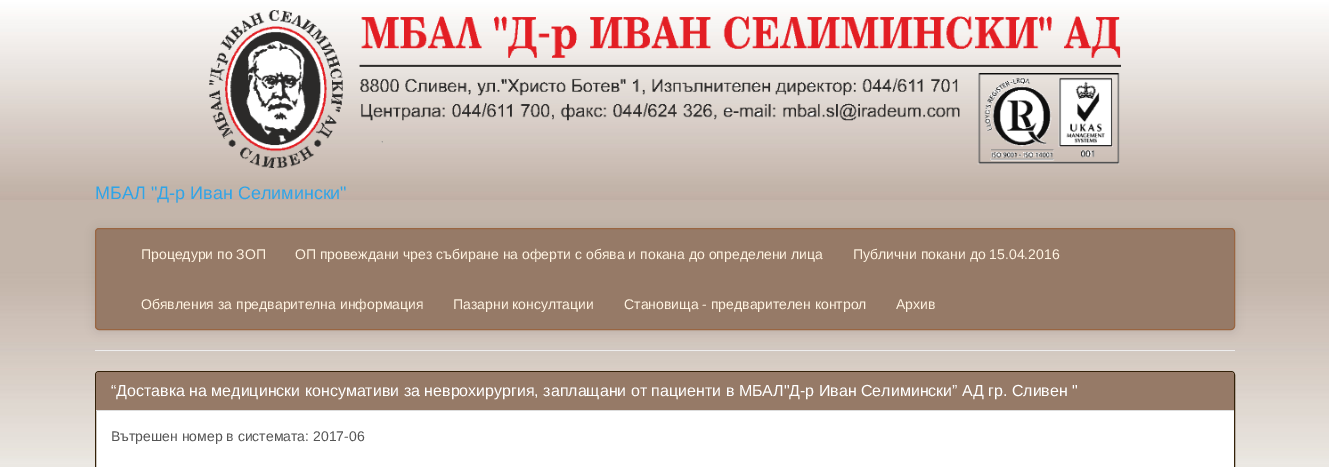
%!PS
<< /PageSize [1329 467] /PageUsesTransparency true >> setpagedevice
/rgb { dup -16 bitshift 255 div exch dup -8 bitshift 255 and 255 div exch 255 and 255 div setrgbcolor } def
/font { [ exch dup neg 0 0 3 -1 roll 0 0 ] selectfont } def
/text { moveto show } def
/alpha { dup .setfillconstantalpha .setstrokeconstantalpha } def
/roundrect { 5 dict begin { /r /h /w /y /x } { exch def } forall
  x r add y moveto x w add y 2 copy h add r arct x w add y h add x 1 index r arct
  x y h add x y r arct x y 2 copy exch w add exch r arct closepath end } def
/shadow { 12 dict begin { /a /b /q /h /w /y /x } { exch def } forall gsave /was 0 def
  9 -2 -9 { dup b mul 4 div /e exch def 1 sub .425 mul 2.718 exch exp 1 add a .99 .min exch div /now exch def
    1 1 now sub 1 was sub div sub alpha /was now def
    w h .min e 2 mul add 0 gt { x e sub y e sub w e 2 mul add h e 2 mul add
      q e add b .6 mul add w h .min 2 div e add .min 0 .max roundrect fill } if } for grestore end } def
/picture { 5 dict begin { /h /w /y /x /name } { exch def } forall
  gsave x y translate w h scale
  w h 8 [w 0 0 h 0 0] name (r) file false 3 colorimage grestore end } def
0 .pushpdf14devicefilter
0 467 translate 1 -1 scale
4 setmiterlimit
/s1 { /LiberationSans-Regular 18 font 16#2FA4E7 rgb } def
/s2 { /LiberationSans-Regular 14 font 16#FFF3E1 rgb } def
/s3 { /LiberationSans-Regular 16 font 16#FFFFFF rgb } def
/s4 { /LiberationSans-Regular 14 font 16#555555 rgb } def
16#FFFFFF rgb
0 0 1329 467 rectfill
(pic1.raw) 0 0 1329 467 picture
(pic2.raw) 209 10 912 158 picture
s1
(МБАЛ "Д-р Иван Селимински") 95 199 text
16#000000 rgb
95 229 1140 102 4 5 0.1 shadow
16#967A67 rgb
95.5 228.5 1139 101 3.5 roundrect gsave fill grestore
16#996541 rgb
stroke
s2
(Процедури по ЗОП) 141 259 text
(ОП провеждани чрез събиране на оферти с обява и покана до определени лица) 295 259 text
(Публични покани до 15.04.2016) 853 259 text
(Обявления за предварителна информация) 141 309 text
(Пазарни консултации) 453 309 text
(Становища - предварителен контрол) 624 309 text
(Архив) 896 309 text
16#EEEEEE rgb
95 350 1140 1 rectfill
16#FFFFFF rgb
95.5 371.5 1139 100 3.5 roundrect gsave fill grestore
16#332108 rgb
stroke
16#967A67 rgb
99 372 moveto 1231 372 lineto 1232.5 372 1234 373.5 1234 375 curveto 1234 410 lineto 96 410 lineto 96 375 lineto 96 373.5 97.5 372 99 372 curveto closepath fill
s3
(“Доставка на медицински консумативи за неврохирургия, заплащани от пациенти в МБАЛ"Д-р Иван Селимински” АД гр. Сливен ") 111 396 text
16#DDDDDD rgb
96 410 1138 1 rectfill
s4
(Вътрешен номер в системата: 2017-06) 111 441 text
.poppdf14devicefilter showpage
